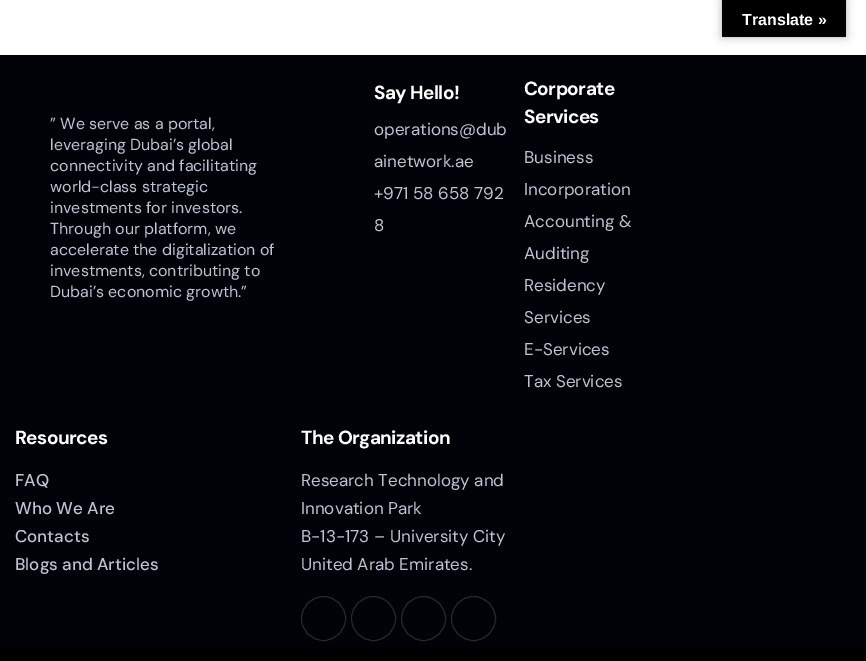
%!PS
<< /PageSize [866 661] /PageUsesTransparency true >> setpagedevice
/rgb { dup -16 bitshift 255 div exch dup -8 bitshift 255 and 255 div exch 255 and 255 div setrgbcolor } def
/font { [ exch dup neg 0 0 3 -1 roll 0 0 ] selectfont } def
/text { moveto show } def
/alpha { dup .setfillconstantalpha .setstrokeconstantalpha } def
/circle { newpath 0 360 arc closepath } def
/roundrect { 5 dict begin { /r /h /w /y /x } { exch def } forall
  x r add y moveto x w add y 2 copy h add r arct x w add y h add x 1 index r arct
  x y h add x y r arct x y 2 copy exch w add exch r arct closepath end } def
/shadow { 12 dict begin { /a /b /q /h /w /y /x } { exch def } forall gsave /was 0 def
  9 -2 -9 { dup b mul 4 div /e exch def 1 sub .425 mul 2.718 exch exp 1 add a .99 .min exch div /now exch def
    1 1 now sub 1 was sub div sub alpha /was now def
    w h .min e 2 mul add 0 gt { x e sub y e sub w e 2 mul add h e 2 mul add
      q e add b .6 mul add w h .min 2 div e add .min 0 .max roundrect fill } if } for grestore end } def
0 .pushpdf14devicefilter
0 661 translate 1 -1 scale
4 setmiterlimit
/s1 { /LiberationSans-Bold 16 font 16#FFFFFF rgb } def
/s2 { /DMSans-Regular 16 font 16#BCC4D3 rgb } def
/s3 { /DMSans-Regular 17 font 16#BCC4D3 rgb } def
/s4 { /DMSans-Medium 17 font 16#BCC4D3 rgb } def
16#FFFFFF rgb
0 0 866 661 rectfill
16#000000 rgb
722 0 124 37 0 4.5 0.3 shadow
722 0 124 37 rectfill
s1
(Translate ») 742 25 text
16#000208 rgb
0 55 866 594 rectfill
s2
(” We serve as a portal,) 50 129 text
(leveraging Dubai’s global) 50 150 text
(connectivity and facilitating) 50 171 text
(world-class strategic) 50 192 text
(investments for investors.) 50 213 text
(Through our platform, we) 50 234 text
(accelerate the digitalization of) 50 255 text
(investments, contributing to) 50 276 text
(Dubai’s economic growth.”) 50 297 text
/DMSans-Bold 19 font
16#FFFFFF rgb
374 99 moveto -0.6 0 (Say Hello!) ashow
s3
(operations@dub) 374 135 text
(ainetwork.ae) 374 167 text
(+971 58 658 792) 374 199 text
(8) 374 231 text
/DMSans-Bold 19 font
16#FFFFFF rgb
524 95 moveto -0.6 0 (Corporate) ashow
524 123 moveto -0.6 0 (Services) ashow
s3
(Business) 524 163 text
(Incorporation) 524 195 text
(Accounting &) 524 227 text
(Auditing) 524 259 text
(Residency) 524 291 text
(Services) 524 323 text
(E-Services) 524 355 text
(Tax Services) 524 387 text
/DMSans-Bold 19 font
16#FFFFFF rgb
15 444 moveto -0.6 0 (Resources) ashow
s4
(FAQ) 15 486 text
(Who We Are) 15 514 text
(Contacts) 15 542 text
(Blogs and Articles) 15 570 text
/DMSans-Bold 19 font
16#FFFFFF rgb
301 444 moveto -0.6 0 (The Organization) ashow
s3
(Research Technology and) 301 486 text
(Innovation Park) 301 514 text
(B-13-173 – University City) 301 542 text
(United Arab Emirates.) 301 570 text
16#26282D rgb
323.5 618.5 22 circle stroke
373.5 618.5 22 circle stroke
423.5 618.5 22 circle stroke
473.5 618.5 22 circle stroke
16#000000 rgb
0 649 866 12 rectfill
.poppdf14devicefilter showpage
